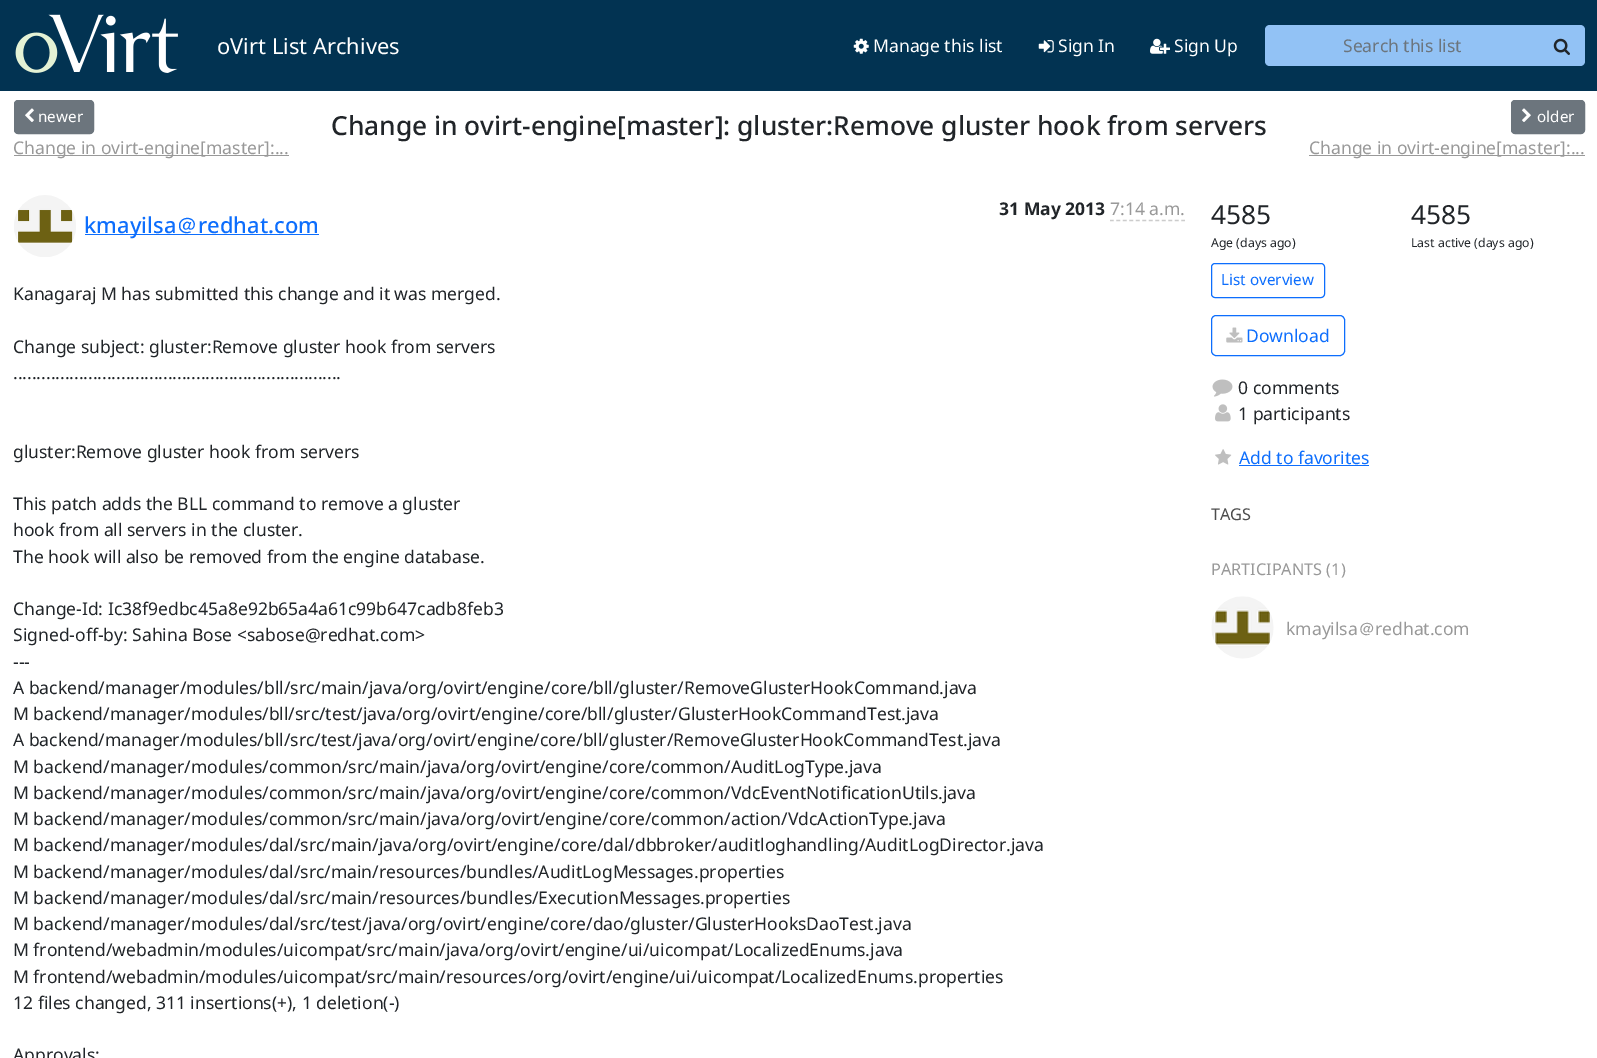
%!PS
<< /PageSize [1597 1058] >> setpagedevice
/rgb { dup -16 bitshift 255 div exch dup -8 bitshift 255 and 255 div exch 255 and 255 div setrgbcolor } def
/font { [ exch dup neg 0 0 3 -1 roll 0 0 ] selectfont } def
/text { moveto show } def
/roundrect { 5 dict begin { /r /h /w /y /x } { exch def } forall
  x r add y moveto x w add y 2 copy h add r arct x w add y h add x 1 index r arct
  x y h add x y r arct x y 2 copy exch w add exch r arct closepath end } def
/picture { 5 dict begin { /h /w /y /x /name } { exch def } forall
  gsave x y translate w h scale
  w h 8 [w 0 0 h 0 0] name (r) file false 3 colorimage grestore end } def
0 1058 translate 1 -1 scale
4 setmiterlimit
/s1 { /NotoSans-Regular 21.9 font 16#FFFFFF rgb } def
/s2 { /NotoSans-Regular 17.5 font 16#FFFFFF rgb } def
/s3 { /NotoSans-Regular 17.5 font 16#6C757D rgb } def
/s4 { /NotoSans-Regular 15.25 font 16#FFFFFF rgb } def
/s5 { /NotoSans-Regular 17.5 font 16#999999 rgb } def
/s6 { /NotoSans-Medium 26.25 font 16#212529 rgb } def
/s7 { /NotoSans-Bold 17.5 font 16#212529 rgb } def
/s8 { /NotoSans-Medium 21.9 font 16#0D6EFD rgb } def
/s9 { /WenQuanYiZenHei-Medium 21.9 font 16#0D6EFD rgb } def
/s10 { /NotoSans-Regular 17.5 font 16#212529 rgb } def
/s11 { /NotoSans-Regular 26.25 font 16#212529 rgb } def
/s12 { /NotoSans-Regular 12.25 font 16#212529 rgb } def
/s13 { /NotoSans-Regular 15.25 font 16#0D6EFD rgb } def
/s14 { /NotoSans-Regular 17.5 font 16#0D6EFD rgb } def
/s15 { /NotoSans-Regular 16.25 font 16#4D4D4D rgb } def
/s16 { /NotoSans-Regular 16.25 font 16#999999 rgb } def
/s17 { /WenQuanYiZenHei-Medium 17.5 font 16#999999 rgb } def
16#FFFFFF rgb
0 0 1597 1058 rectfill
16#023352 rgb
0 0 1597 91 rectfill
(pic1.raw) 15 14 163 59 picture
s1
(oVirt List Archives) 217 54 text
(pic2.raw) 853 38 16 16 picture
s2
(Manage this list) 873 52 text
(pic3.raw) 1038 40 16 13 picture
(Sign In) 1058 52 text
(pic4.raw) 1150 38 20 16 picture
(Sign Up) 1174 52 text
16#92C2F5 rgb
1270 25 moveto 1541 25 lineto 1541 66 lineto 1270 66 lineto 1267 66 1265 64 1265 61 curveto 1265 30 lineto 1265 27 1267 25 1270 25 curveto closepath fill
s3
(Search this list) 1343 52 text
16#92C2F5 rgb
1540 25 moveto 1580 25 lineto 1583 25 1585 27 1585 30 curveto 1585 61 lineto 1585 64 1583 66 1580 66 curveto 1540 66 lineto closepath fill
(pic5.raw) 1553 38 17 17 picture
16#6C757D rgb
14.5 100.5 79 33 3.5 roundrect gsave fill grestore
stroke
(pic6.raw) 25 108 9 14 picture
s4
(newer) 38 122 text
16#999999 rgb
14 155 275 1 rectfill
s5
(Change in ovirt-engine[master]:...) 13 154 text
s6
(Change in ovirt-engine[master]: gluster:Remove gluster hook from servers) 331 135 text
16#6C757D rgb
1511.5 100.5 73 33 3.5 roundrect gsave fill grestore
stroke
(pic7.raw) 1522 108 9 14 picture
s4
(older) 1537 122 text
16#999999 rgb
1309 155 276 1 rectfill
s5
(Change in ovirt-engine[master]:...) 1309 154 text
s7
(31 May 2013) 999 215 text
s5
(7:14 a.m.) 1110 215 text
16#CCCCCC rgb
1.2 setlinewidth
[3.75 2.73] 0 setdash
1110 220.5 moveto 1185 220.5 lineto stroke
(pic8.raw) 14 195 62 62 picture
16#0D6EFD rgb
85 234 234 1 rectfill
s8
(kmayilsa) 84 233 text
s9
(＠) 176 233 text
s8
(redhat.com) 198 233 text
s10
(Kanagaraj M has submitted this change and it was merged.) 13 300 text
(Change subject: gluster:Remove gluster hook from servers) 13 353 text
(......................................................................) 13 379 text
(gluster:Remove gluster hook from servers) 13 458 text
(This patch adds the BLL command to remove a gluster) 13 510 text
(hook from all servers in the cluster.) 13 536 text
(The hook will also be removed from the engine database.) 13 563 text
(Change-Id: Ic38f9edbc45a8e92b65a4a61c99b647cadb8feb3) 13 615 text
(Signed-off-by: Sahina Bose <sabose@redhat.com>) 13 641 text
(---) 13 668 text
(A backend/manager/modules/bll/src/main/java/org/ovirt/engine/core/bll/gluster/RemoveGlusterHookCommand.java) 13 694 text
(M backend/manager/modules/bll/src/test/java/org/ovirt/engine/core/bll/gluster/GlusterHookCommandTest.java) 13 720 text
(A backend/manager/modules/bll/src/test/java/org/ovirt/engine/core/bll/gluster/RemoveGlusterHookCommandTest.java) 13 746 text
(M backend/manager/modules/common/src/main/java/org/ovirt/engine/core/common/AuditLogType.java) 13 773 text
(M backend/manager/modules/common/src/main/java/org/ovirt/engine/core/common/VdcEventNotificationUtils.java) 13 799 text
(M backend/manager/modules/common/src/main/java/org/ovirt/engine/core/common/action/VdcActionType.java) 13 825 text
(M backend/manager/modules/dal/src/main/java/org/ovirt/engine/core/dal/dbbroker/auditloghandling/AuditLogDirector.java) 13 851 text
(M backend/manager/modules/dal/src/main/resources/bundles/AuditLogMessages.properties) 13 878 text
(M backend/manager/modules/dal/src/main/resources/bundles/ExecutionMessages.properties) 13 904 text
(M backend/manager/modules/dal/src/test/java/org/ovirt/engine/core/dao/gluster/GlusterHooksDaoTest.java) 13 930 text
(M frontend/webadmin/modules/uicompat/src/main/java/org/ovirt/engine/ui/uicompat/LocalizedEnums.java) 13 956 text
(M frontend/webadmin/modules/uicompat/src/main/resources/org/ovirt/engine/ui/uicompat/LocalizedEnums.properties) 13 983 text
(12 files changed, 311 insertions\(+\), 1 deletion\(-\)) 13 1009 text
(Approvals:) 13 1061 text
s11
(4585) 1211 224 text
s12
(Age \(days ago\)) 1211 247 text
s11
(4585) 1411 224 text
s12
(Last active \(days ago\)) 1411 247 text
16#0D6EFD rgb
1 setlinewidth
[] 0 setdash
1211.5 263.5 113 34 3.5 roundrect stroke
s13
(List overview) 1221 285 text
1211.5 315.5 133 40 4.5 roundrect stroke
(pic9.raw) 1226 327 17 16 picture
s14
(Download) 1246 342 text
(pic10.raw) 1212 379 21 18 picture
s10
(0 comments) 1238 394 text
(pic11.raw) 1215 404 16 18 picture
(1 participants) 1238 420 text
(pic12.raw) 1215 449 17 16 picture
s14
(Add to favorites) 1239 464 text
1239 465 130 1 rectfill
s15
(TAGS) 1211 520 text
s16
(PARTICIPANTS \(1\)) 1211 575 text
(pic13.raw) 1211 596 63 63 picture
s5
(kmayilsa) 1286 635 text
s17
(＠) 1358 635 text
s5
(redhat.com) 1375 635 text
showpage
